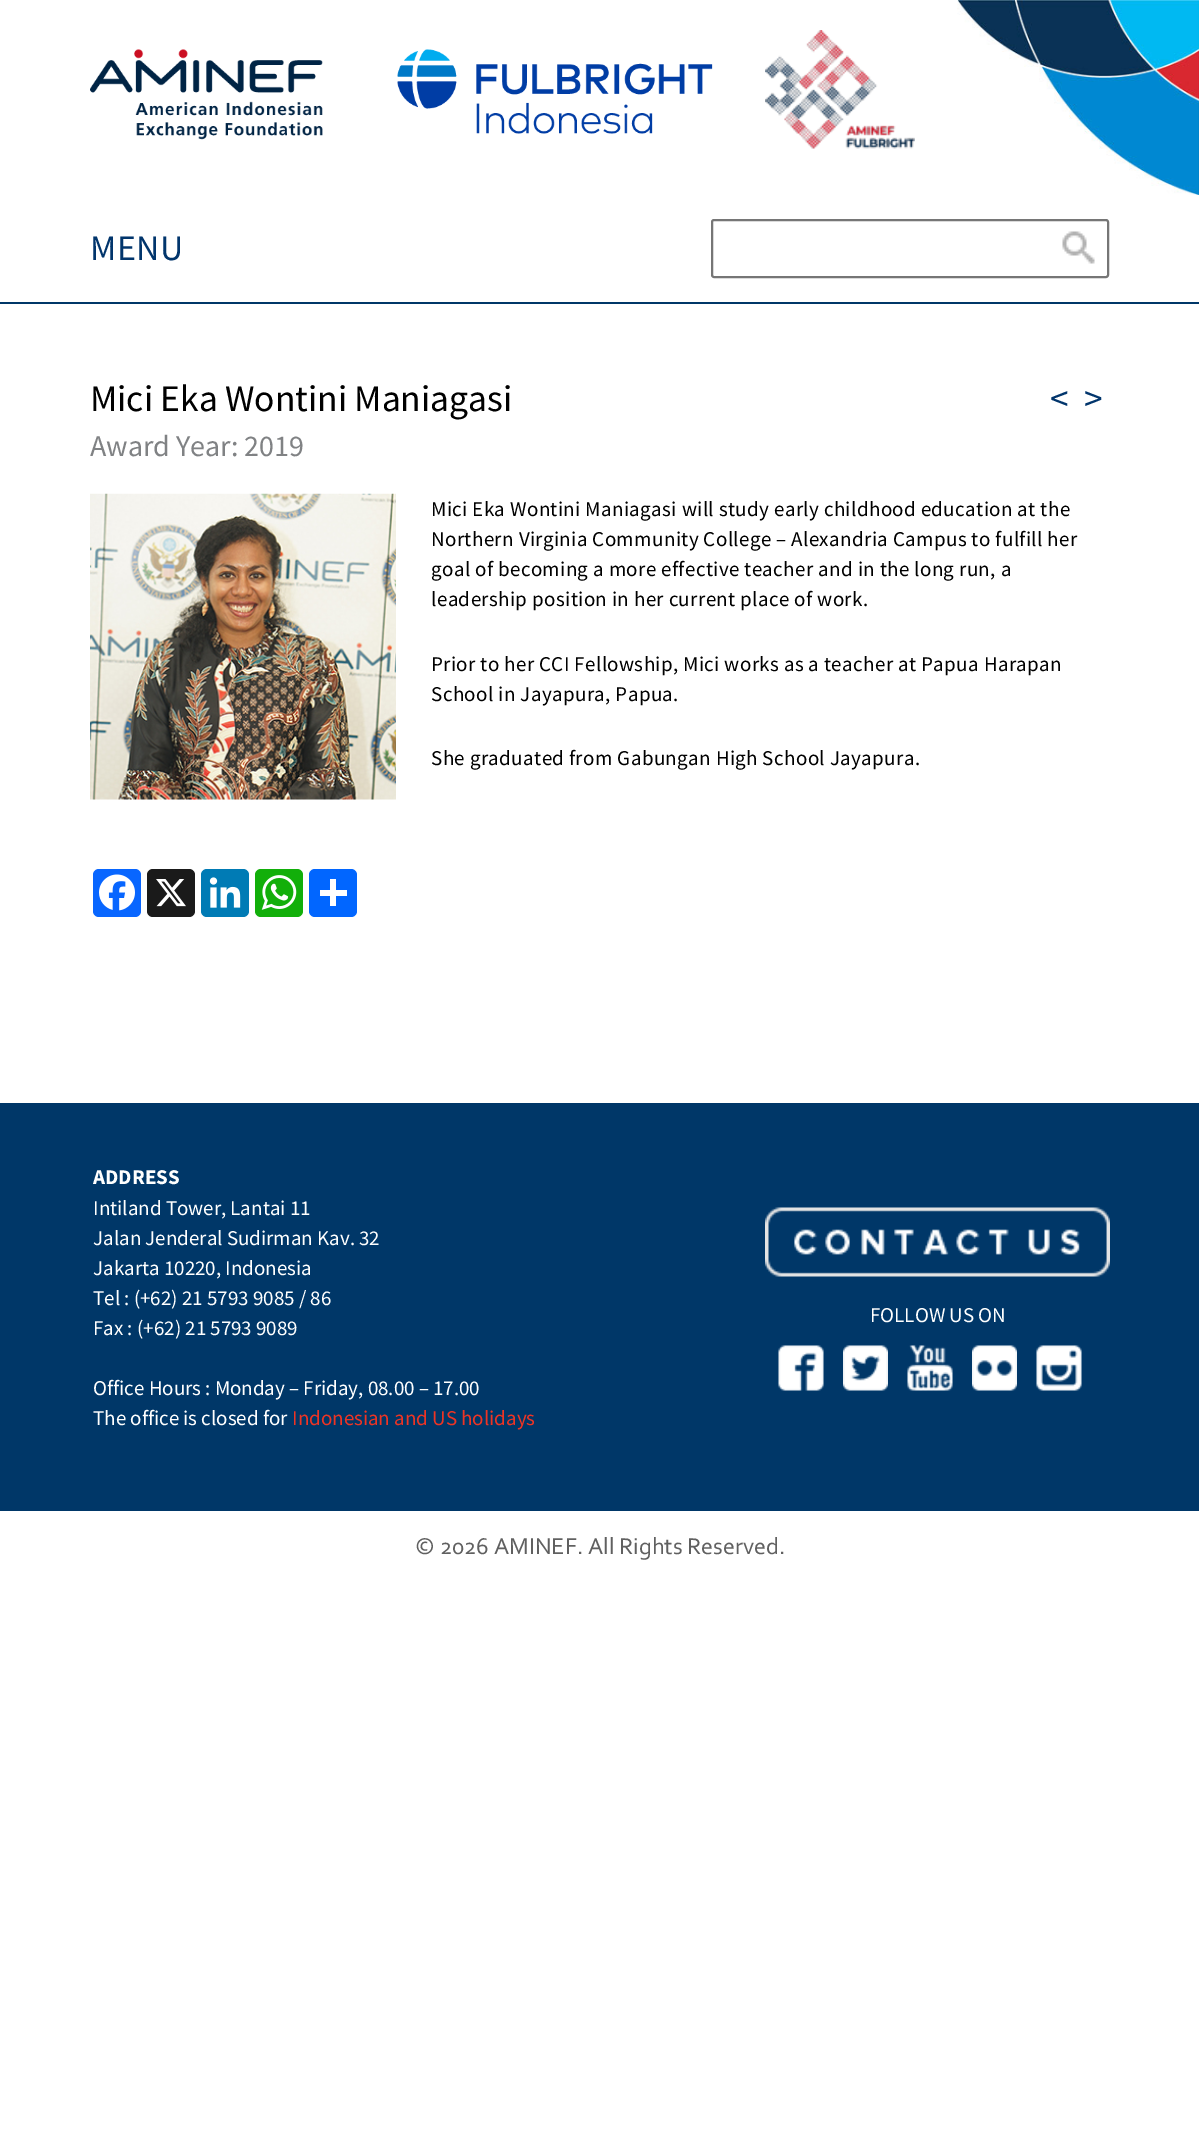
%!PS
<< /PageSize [1199 2134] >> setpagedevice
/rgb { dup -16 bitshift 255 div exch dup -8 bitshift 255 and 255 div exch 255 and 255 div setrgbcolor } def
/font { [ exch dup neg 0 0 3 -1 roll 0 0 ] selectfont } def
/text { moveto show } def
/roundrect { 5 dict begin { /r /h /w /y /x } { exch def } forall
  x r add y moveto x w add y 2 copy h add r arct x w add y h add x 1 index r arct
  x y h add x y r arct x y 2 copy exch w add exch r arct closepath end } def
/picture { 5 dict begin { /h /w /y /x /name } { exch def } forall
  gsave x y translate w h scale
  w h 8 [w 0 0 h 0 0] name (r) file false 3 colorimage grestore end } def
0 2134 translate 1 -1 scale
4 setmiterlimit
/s1 { /SourceSansPro-Regular 37.5 font 16#000000 rgb } def
/s2 { /SourceSansPro-Regular 37.5 font 16#01356C rgb } def
/s3 { /SourceSansPro-Regular 30 font 16#808284 rgb } def
/s4 { /SourceSansPro-Bold 21 font 16#FFFFFF rgb } def
/s5 { /SourceSansPro-Regular 21 font 16#FFFFFF rgb } def
/s6 { /SourceSansPro-Regular 21 font 16#EE3424 rgb } def
/s7 { /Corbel-Regular 24 font 16#606060 rgb } def
16#FFFFFF rgb
0 0 1199 2134 rectfill
(pic1.raw) 957 0 242 195 picture
(pic2.raw) 90 49 233 91 picture
(pic3.raw) 397 49 316 85 picture
(pic4.raw) 765 30 150 119 picture
16#003768 rgb
0 302 1199 2 rectfill
/SourceSansPro-Regular 36 font
16#01356C rgb
90 260 moveto 0.38 0 (MENU) ashow
16#767676 rgb
2 setlinewidth
712 220 396 57 2 roundrect stroke
(pic5.raw) 1062 231 33 33 picture
s1
(Mici Eka Wontini Maniagasi) 90 411 text
s2
(<) 1050 411 text
(>) 1084 411 text
s3
(Award Year: 2019) 90 456 text
(pic6.raw) 90 493 306 307 picture
/SourceSansPro-Regular 21 font
16#000000 rgb
431 516 moveto 0.38 0 (Mici Eka Wontini Maniagasi will study early childhood education at the) ashow
431 546 moveto 0.38 0 (Northern Virginia Community College – Alexandria Campus to fulfill her) ashow
431 576 moveto 0.38 0 (goal of becoming a more effective teacher and in the long run, a) ashow
431 606 moveto 0.38 0 (leadership position in her current place of work.) ashow
431 671 moveto 0.38 0 (Prior to her CCI Fellowship, Mici works as a teacher at Papua Harapan) ashow
431 701 moveto 0.38 0 (School in Jayapura, Papua.) ashow
431 765 moveto 0.38 0 (She graduated from Gabungan High School Jayapura.) ashow
16#0866FF rgb
93 869 48 48 6 roundrect fill
(pic7.raw) 99 874 36 37 picture
16#1A1A1A rgb
147 869 48 48 6 roundrect fill
(pic8.raw) 156 879 30 28 picture
16#007BB5 rgb
201 869 48 48 6 roundrect fill
(pic9.raw) 209 877 32 31 picture
16#12AF0A rgb
255 869 48 48 6 roundrect fill
(pic10.raw) 261 875 36 35 picture
16#0166FF rgb
309 869 48 48 6 roundrect fill
16#FFFFFF rgb
330 879 6 27 rectfill
320 890 27 6 rectfill
16#003768 rgb
0 1103 1199 408 rectfill
s4
(ADDRESS) 93 1184 text
s5
(Intiland Tower, Lantai 11) 93 1215 text
(Jalan Jenderal Sudirman Kav. 32) 93 1245 text
(Jakarta 10220, Indonesia) 93 1275 text
(Tel : \(+62\) 21 5793 9085 / 86) 93 1305 text
(Fax : \(+62\) 21 5793 9089) 93 1335 text
(Office Hours : Monday – Friday, 08.00 – 17.00) 93 1395 text
(The office is closed for) 93 1425 text
s6
(Indonesian and US holidays) 292 1425 text
(pic11.raw) 765 1207 345 70 picture
s5
(FOLLOW US ON) 870 1322 text
(pic12.raw) 778 1345 46 46 picture
(pic13.raw) 843 1345 45 46 picture
(pic14.raw) 907 1345 46 46 picture
(pic15.raw) 972 1345 45 46 picture
(pic16.raw) 1036 1345 46 46 picture
s7
(© 2026 AMINEF. All Rights Reserved.) 415 1554 text
showpage
